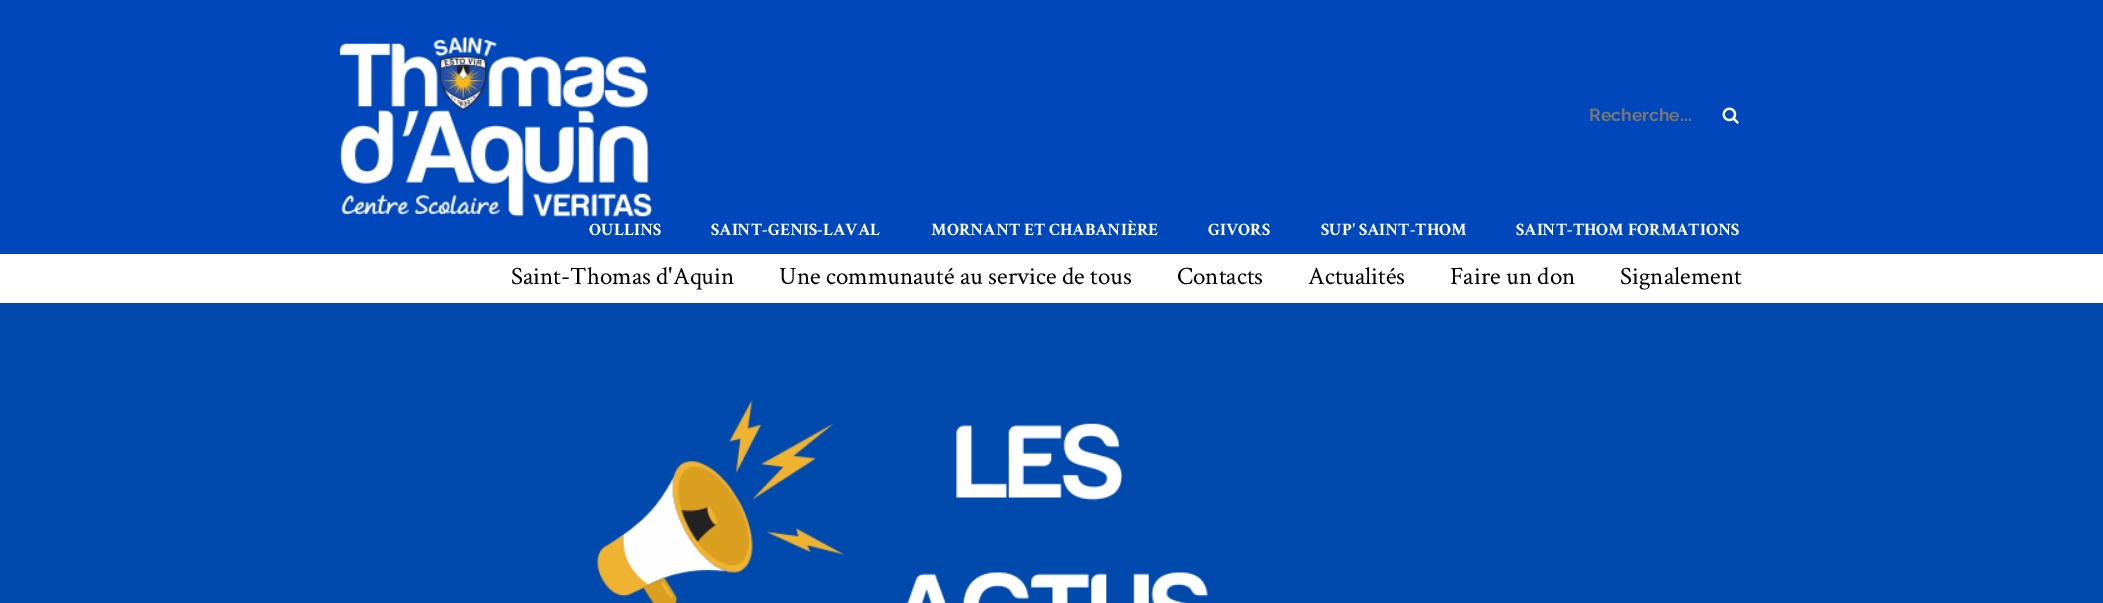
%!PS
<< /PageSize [2103 603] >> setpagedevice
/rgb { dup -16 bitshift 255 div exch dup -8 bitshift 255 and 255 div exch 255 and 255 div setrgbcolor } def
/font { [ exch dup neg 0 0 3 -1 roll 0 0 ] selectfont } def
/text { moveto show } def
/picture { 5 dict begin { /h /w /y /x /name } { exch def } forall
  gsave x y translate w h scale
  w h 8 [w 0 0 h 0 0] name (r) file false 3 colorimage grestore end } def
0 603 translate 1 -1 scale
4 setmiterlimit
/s1 { /Raleway-Bold 17.5 font 16#757575 rgb } def
/s2 { /CrimsonText-Bold 17.5 font 16#FFFFFF rgb } def
/s3 { /CrimsonText-Regular 25 font 16#000000 rgb } def
16#FFFFFF rgb
0 0 2103 603 rectfill
16#0047BB rgb
0 0 2103 254 rectfill
(pic1.raw) 339 37 313 180 picture
s1
(Recherche...) 1589 121 text
(pic2.raw) 1722 107 17 17 picture
16#0047BB rgb
0 303 2103 1 rectfill
s2
(OULLINS) 589 235 text
(SAINT-GENIS-LAVAL) 711 235 text
(MORNANT ET CHABANIÈRE) 931 235 text
(GIVORS) 1208 235 text
(SUP' SAINT-THOM) 1321 235 text
(SAINT-THOM FORMATIONS) 1516 235 text
s3
(Saint-Thomas d'Aquin) 511 284 text
(Une communauté au service de tous) 779 284 text
(Contacts) 1177 284 text
(Actualités) 1308 284 text
(Faire un don) 1450 284 text
(Signalement) 1620 284 text
(pic3.raw) 0 304 2103 299 picture
showpage
